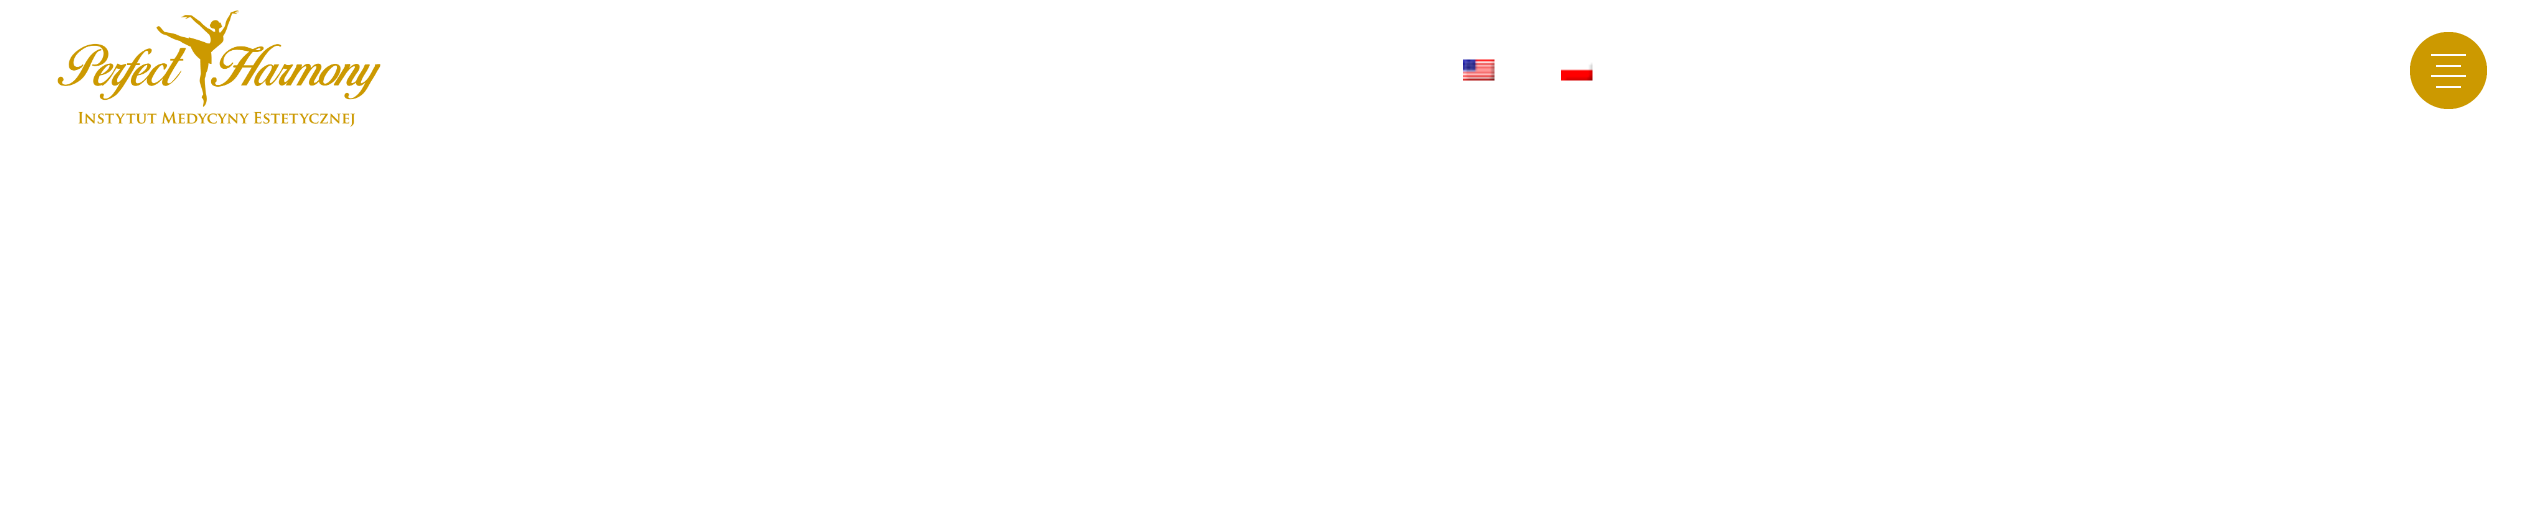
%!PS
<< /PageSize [2538 515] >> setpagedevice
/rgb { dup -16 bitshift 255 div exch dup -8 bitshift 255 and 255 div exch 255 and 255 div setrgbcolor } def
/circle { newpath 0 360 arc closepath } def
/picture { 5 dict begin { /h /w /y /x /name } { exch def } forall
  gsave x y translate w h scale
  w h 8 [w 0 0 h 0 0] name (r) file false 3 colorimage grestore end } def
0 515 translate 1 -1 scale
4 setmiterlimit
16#FFFFFF rgb
0 0 2538 515 rectfill
(pic1.raw) 57 10 324 117 picture
(pic2.raw) 1463 59 32 22 picture
(pic3.raw) 1561 62 32 19 picture
16#CC9900 rgb
2448.5 70.5 38.5 circle fill
16#FFFFFF rgb
2431 54 35 2 rectfill
2436 65 25 2 rectfill
2431 75 35 2 rectfill
2436 86 25 2 rectfill
showpage
